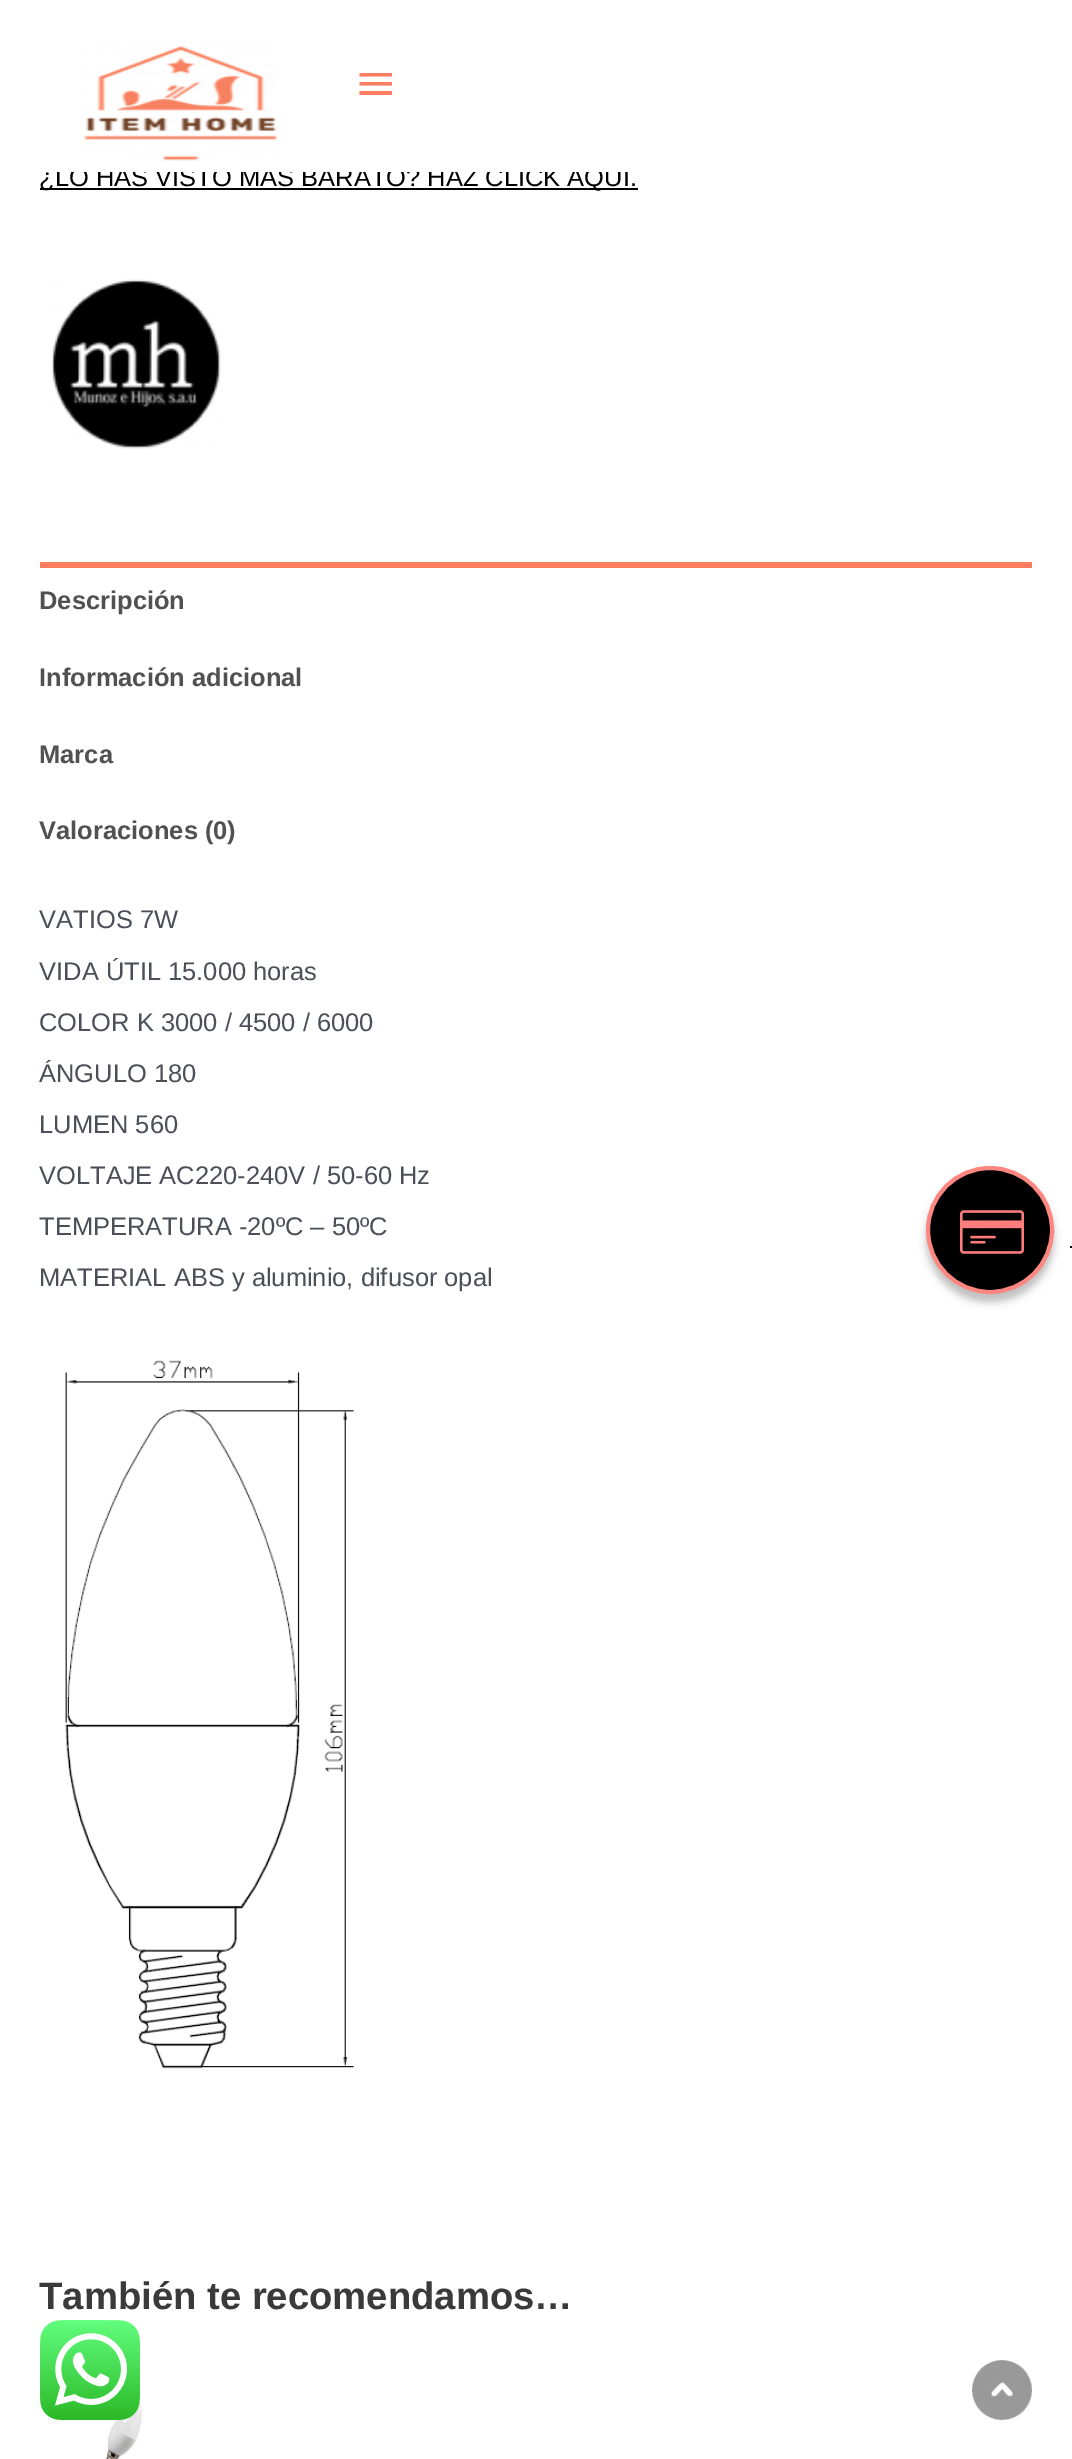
%!PS
<< /PageSize [1072 2459] /PageUsesTransparency true >> setpagedevice
/rgb { dup -16 bitshift 255 div exch dup -8 bitshift 255 and 255 div exch 255 and 255 div setrgbcolor } def
/font { [ exch dup neg 0 0 3 -1 roll 0 0 ] selectfont } def
/text { moveto show } def
/alpha { dup .setfillconstantalpha .setstrokeconstantalpha } def
/circle { newpath 0 360 arc closepath } def
/roundrect { 5 dict begin { /r /h /w /y /x } { exch def } forall
  x r add y moveto x w add y 2 copy h add r arct x w add y h add x 1 index r arct
  x y h add x y r arct x y 2 copy exch w add exch r arct closepath end } def
/shadow { 12 dict begin { /a /b /q /h /w /y /x } { exch def } forall gsave /was 0 def
  9 -2 -9 { dup b mul 4 div /e exch def 1 sub .425 mul 2.718 exch exp 1 add a .99 .min exch div /now exch def
    1 1 now sub 1 was sub div sub alpha /was now def
    w h .min e 2 mul add 0 gt { x e sub y e sub w e 2 mul add h e 2 mul add
      q e add b .6 mul add w h .min 2 div e add .min 0 .max roundrect fill } if } for grestore end } def
/picture { 5 dict begin { /h /w /y /x /name } { exch def } forall
  gsave x y translate w h scale
  w h 8 [w 0 0 h 0 0] name (r) file false 3 colorimage grestore end } def
0 .pushpdf14devicefilter
0 2459 translate 1 -1 scale
4 setmiterlimit
/s1 { /LiberationSans-Regular 25.5 font 16#000000 rgb } def
/s2 { /LiberationSans-Bold 25.5 font 16#515151 rgb } def
/s3 { /LiberationSans-Regular 25.5 font 16#4B4F58 rgb } def
/s4 { /LiberationSans-Bold 38.25 font 16#3A3A3A rgb } def
16#FFFFFF rgb
0 0 1072 2459 rectfill
16#000000 rgb
40 188 598 2 rectfill
s1
(¿LO HAS VISTO MÁS BARATO? HAZ CLICK AQUÍ.) 39 186 text
16#FFFFFF rgb
57 163 574 9 rectfill
(pic1.raw) 83 46 196 115 picture
16#FC7D60 rgb
359.5 73 moveto 392 73 lineto 392 76.5 lineto 359.5 76.5 lineto closepath 359.5 85.5 moveto 359.5 82 lineto 392 82 lineto 392 85.5 lineto closepath 359.5 95 moveto 359.5 91 lineto 392 91 lineto 392 95 lineto closepath fill
(pic2.raw) 51 279 170 170 picture
40 562 992 6 rectfill
s2
(Descripción) 39 609 text
(Información adicional) 39 686 text
(Marca) 39 763 text
(Valoraciones \(0\)) 39 839 text
s3
(VATIOS 7W) 39 928 text
(VIDA ÚTIL 15.000 horas) 39 980 text
(COLOR K 3000 / 4500 / 6000) 39 1031 text
(ÁNGULO 180) 39 1082 text
(LUMEN 560) 39 1133 text
(VOLTAJE AC220-240V / 50-60 Hz) 39 1184 text
(TEMPERATURA -20ºC – 50ºC) 39 1235 text
(MATERIAL ABS y aluminio, difusor opal) 39 1286 text
(pic3.raw) 65 1360 289 709 picture
s4
(También te recomendamos…) 39 2309 text
(pic4.raw) 105 2404 37 55 picture
16#000000 rgb
926 1174 128 128 64 4 0.25 shadow
990 1230 62 circle gsave fill grestore
16#FE8680 rgb
4 setlinewidth
stroke
(pic5.raw) 960 1210 64 44 picture
16#000000 rgb
1070 1246 2 2 rectfill
(pic6.raw) 40 2320 100 100 picture
(pic7.raw) 972 2360 60 60 picture
.poppdf14devicefilter showpage
